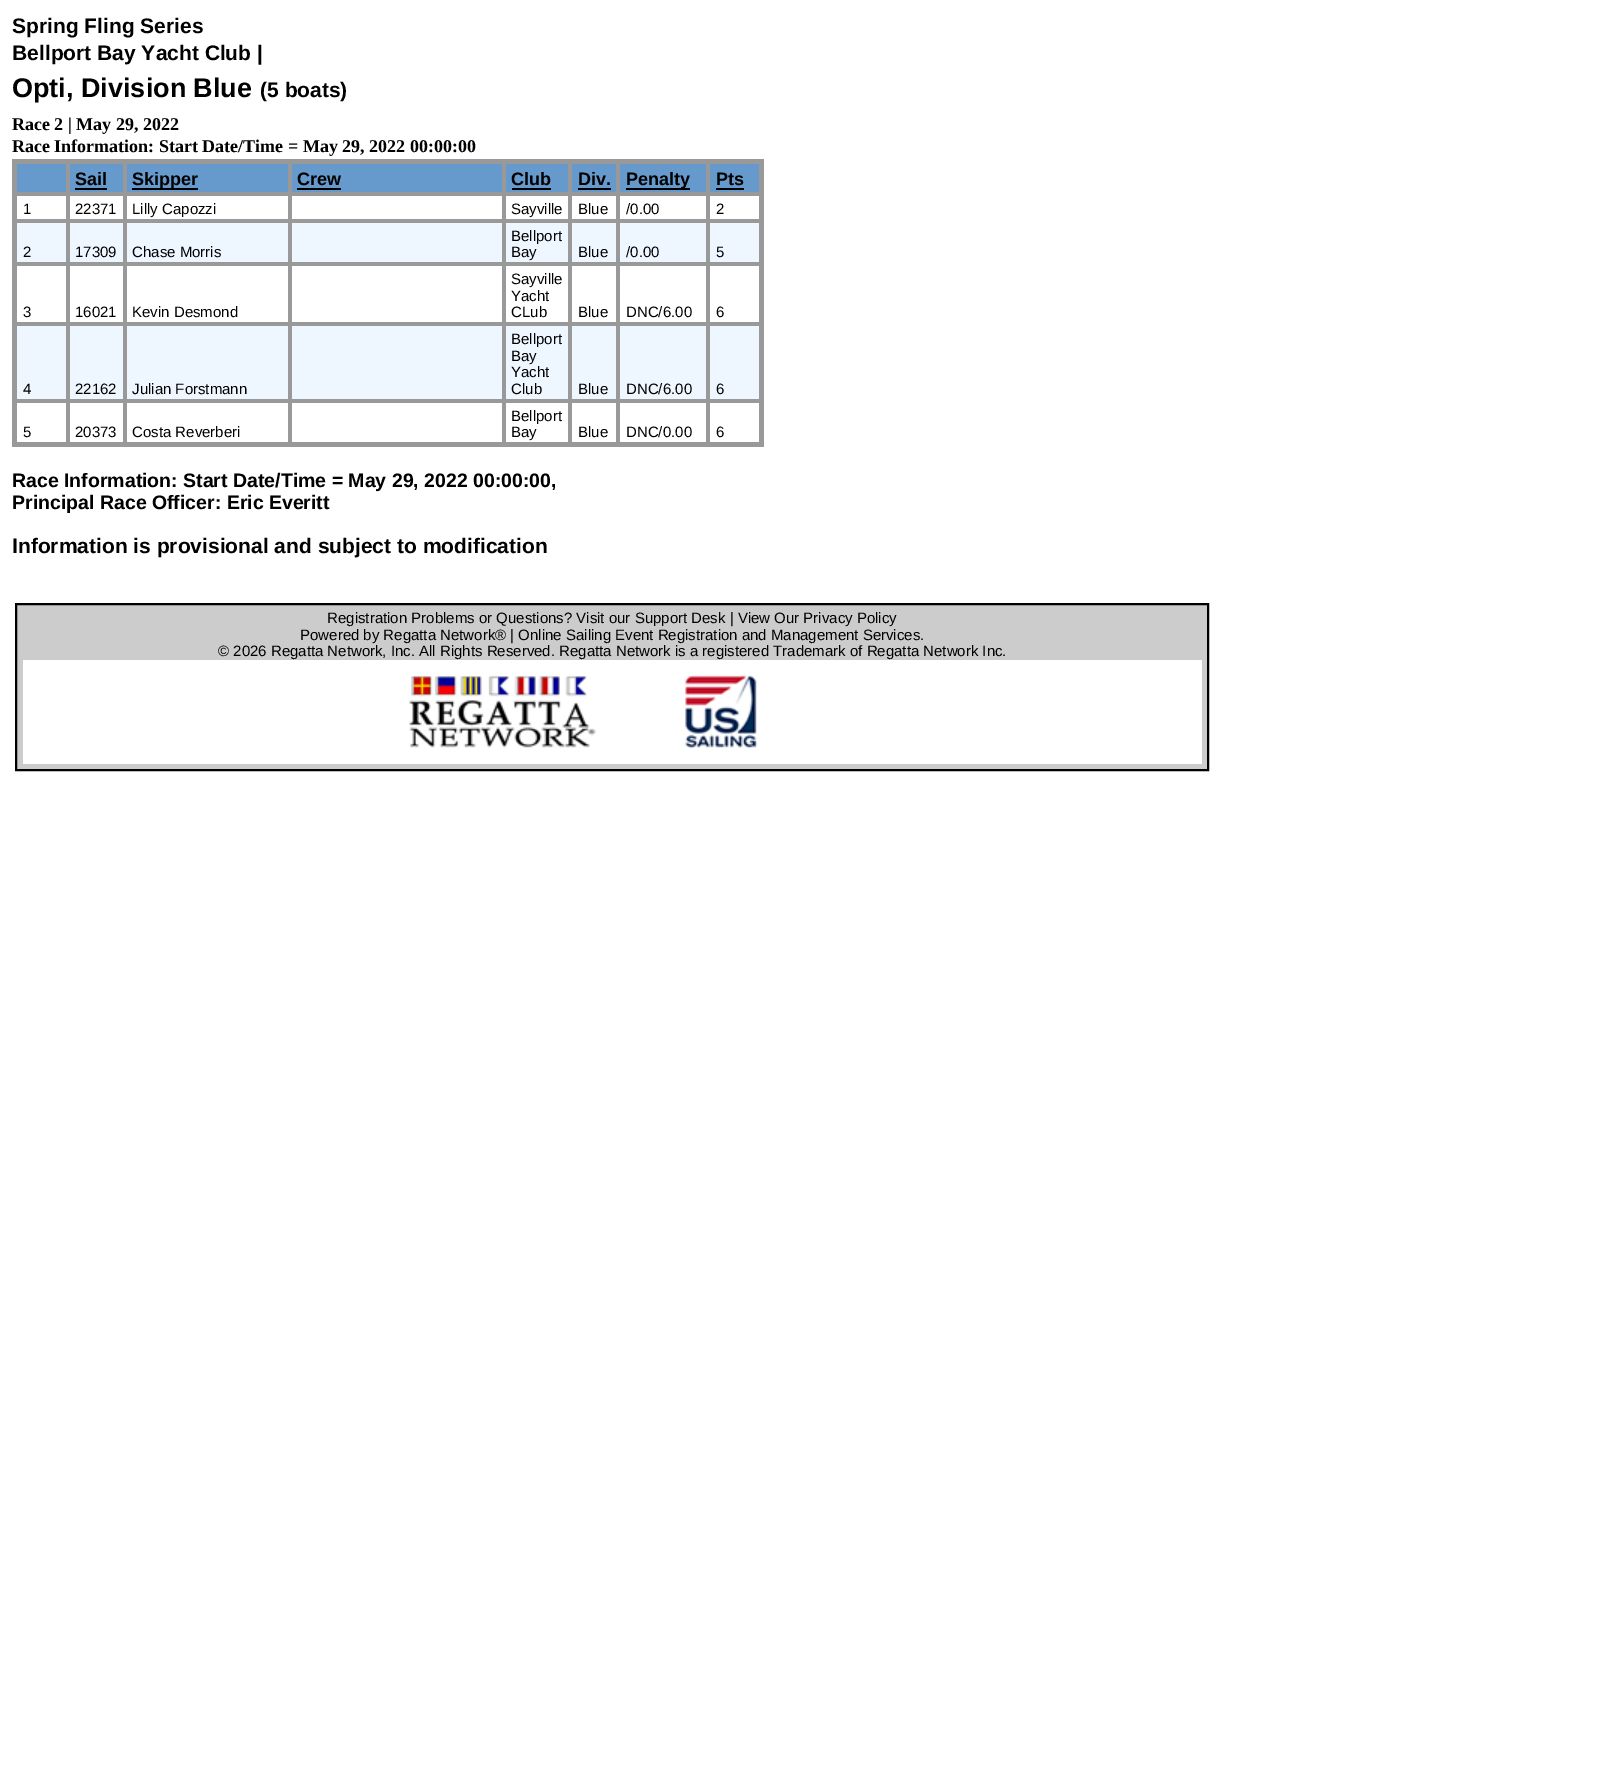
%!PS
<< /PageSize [1620 1773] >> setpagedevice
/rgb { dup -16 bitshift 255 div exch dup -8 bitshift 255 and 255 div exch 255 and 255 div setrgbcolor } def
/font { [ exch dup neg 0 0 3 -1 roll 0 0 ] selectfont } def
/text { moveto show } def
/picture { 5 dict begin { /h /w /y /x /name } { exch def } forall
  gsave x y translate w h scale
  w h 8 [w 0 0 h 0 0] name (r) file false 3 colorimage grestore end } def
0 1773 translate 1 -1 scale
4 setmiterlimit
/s1 { /LiberationSans-Bold 21 font 16#000000 rgb } def
/s2 { /LiberationSans-Bold 27 font 16#000000 rgb } def
/s3 { /LiberationSerif-Bold 18 font 16#000000 rgb } def
/s4 { /LiberationSans-Bold 18 font 16#000000 rgb } def
/s5 { /LiberationSans-Regular 15 font 16#000000 rgb } def
/s6 { /LiberationSans-Bold 19.5 font 16#000000 rgb } def
16#FFFFFF rgb
0 0 1620 1773 rectfill
s1
(Spring Fling Series) 12 33 text
(Bellport Bay Yacht Club |) 12 60 text
s2
(Opti, Division Blue) 12 97 text
s1
(\(5 boats\)) 260 97 text
s3
(Race 2 | May 29, 2022) 12 130 text
(Race Information: Start Date/Time = May 29, 2022 00:00:00) 12 152 text
16#999999 rgb
12 159 752 288 rectfill
16#6699CC rgb
17 164 49 28 rectfill
70 164 53 28 rectfill
s4
(Sail) 75 185 text
75 188 32 2 rectfill
16#6699CC rgb
127 164 161 28 rectfill
16#000000 rgb
132 188 66 2 rectfill
(Skipper) 132 185 text
16#6699CC rgb
292 164 210 28 rectfill
s4
(Crew) 297 185 text
297 188 44 2 rectfill
16#6699CC rgb
506 164 62 28 rectfill
s4
(Club) 511 185 text
512 188 39 2 rectfill
16#6699CC rgb
572 164 44 28 rectfill
s4
(Div.) 578 185 text
578 188 33 2 rectfill
16#6699CC rgb
620 164 86 28 rectfill
16#000000 rgb
626 188 64 2 rectfill
(Penalty) 626 185 text
16#6699CC rgb
710 164 49 28 rectfill
s4
(Pts) 716 185 text
716 188 28 2 rectfill
16#FFFFFF rgb
17 196 49 23 rectfill
s5
(1) 23 214 text
16#FFFFFF rgb
70 196 53 23 rectfill
s5
(22371) 75 214 text
16#FFFFFF rgb
127 196 161 23 rectfill
s5
(Lilly Capozzi) 132 214 text
16#FFFFFF rgb
292 196 210 23 rectfill
506 196 62 23 rectfill
s5
(Sayville) 511 214 text
16#FFFFFF rgb
572 196 44 23 rectfill
s5
(Blue) 578 214 text
16#FFFFFF rgb
620 196 86 23 rectfill
s5
(/0.00) 626 214 text
16#FFFFFF rgb
710 196 49 23 rectfill
s5
(2) 716 214 text
16#EEF6FF rgb
17 223 49 39 rectfill
s5
(2) 23 257 text
16#EEF6FF rgb
70 223 53 39 rectfill
s5
(17309) 75 257 text
16#EEF6FF rgb
127 223 161 39 rectfill
s5
(Chase Morris) 132 257 text
16#EEF6FF rgb
292 223 210 39 rectfill
506 223 62 39 rectfill
s5
(Bellport) 511 241 text
(Bay) 511 257 text
16#EEF6FF rgb
572 223 44 39 rectfill
s5
(Blue) 578 257 text
16#EEF6FF rgb
620 223 86 39 rectfill
s5
(/0.00) 626 257 text
16#EEF6FF rgb
710 223 49 39 rectfill
s5
(5) 716 257 text
16#FFFFFF rgb
17 266 49 56 rectfill
s5
(3) 23 317 text
16#FFFFFF rgb
70 266 53 56 rectfill
s5
(16021) 75 317 text
16#FFFFFF rgb
127 266 161 56 rectfill
s5
(Kevin Desmond) 132 317 text
16#FFFFFF rgb
292 266 210 56 rectfill
506 266 62 56 rectfill
s5
(Sayville) 511 284 text
(Yacht) 511 301 text
(CLub) 511 317 text
16#FFFFFF rgb
572 266 44 56 rectfill
s5
(Blue) 578 317 text
16#FFFFFF rgb
620 266 86 56 rectfill
s5
(DNC/6.00) 626 317 text
16#FFFFFF rgb
710 266 49 56 rectfill
s5
(6) 716 317 text
16#EEF6FF rgb
17 326 49 73 rectfill
s5
(4) 23 394 text
16#EEF6FF rgb
70 326 53 73 rectfill
s5
(22162) 75 394 text
16#EEF6FF rgb
127 326 161 73 rectfill
s5
(Julian Forstmann) 132 394 text
16#EEF6FF rgb
292 326 210 73 rectfill
506 326 62 73 rectfill
s5
(Bellport) 511 344 text
(Bay) 511 361 text
(Yacht) 511 377 text
(Club) 511 394 text
16#EEF6FF rgb
572 326 44 73 rectfill
s5
(Blue) 578 394 text
16#EEF6FF rgb
620 326 86 73 rectfill
s5
(DNC/6.00) 626 394 text
16#EEF6FF rgb
710 326 49 73 rectfill
s5
(6) 716 394 text
16#FFFFFF rgb
17 403 49 39 rectfill
s5
(5) 23 437 text
16#FFFFFF rgb
70 403 53 39 rectfill
s5
(20373) 75 437 text
16#FFFFFF rgb
127 403 161 39 rectfill
s5
(Costa Reverberi) 132 437 text
16#FFFFFF rgb
292 403 210 39 rectfill
506 403 62 39 rectfill
s5
(Bellport) 511 421 text
(Bay) 511 437 text
16#FFFFFF rgb
572 403 44 39 rectfill
s5
(Blue) 578 437 text
16#FFFFFF rgb
620 403 86 39 rectfill
s5
(DNC/0.00) 626 437 text
16#FFFFFF rgb
710 403 49 39 rectfill
s5
(6) 716 437 text
s6
(Race Information: Start Date/Time = May 29, 2022 00:00:00,) 12 487 text
(Principal Race Officer: Eric Everitt) 12 509 text
s1
(Information is provisional and subject to modification) 12 553 text
16#CCCCCC rgb
16 604 moveto 1208 604 lineto 1208 770 lineto 16 770 lineto closepath gsave fill grestore
16#000000 rgb
2 setlinewidth
stroke
s5
(Registration Problems or Questions? Visit our Support Desk | View Our Privacy Policy) 327 623 text
(Powered by Regatta Network® | Online Sailing Event Registration and Management Services.) 300 640 text
(© 2026 Regatta Network, Inc. All Rights Reserved. Regatta Network is a registered Trademark of Regatta Network Inc.) 218 656 text
16#FFFFFF rgb
23 660 1179 104 rectfill
(pic1.raw) 409 672 187 76 picture
(pic2.raw) 685 674 72 75 picture
showpage
